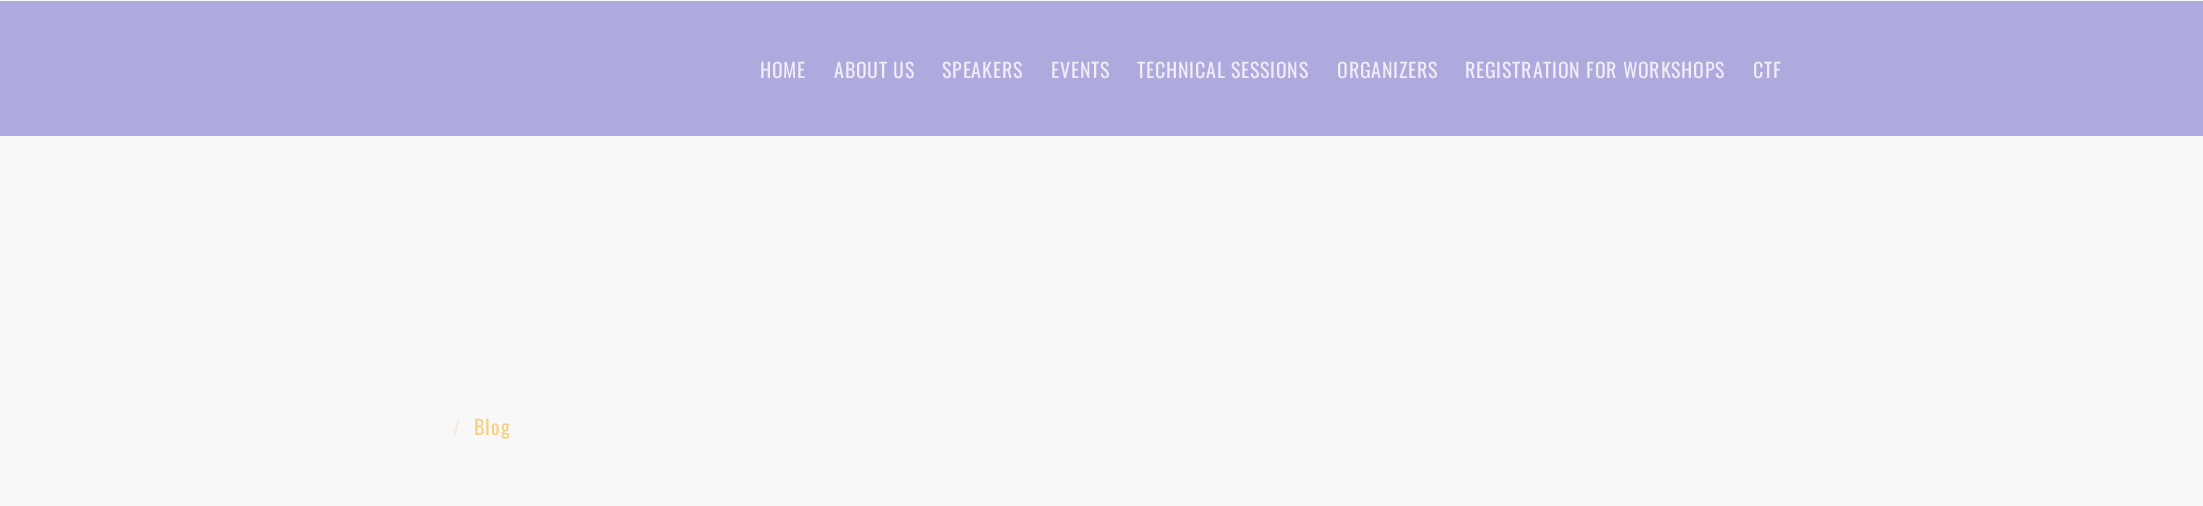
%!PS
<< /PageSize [2203 506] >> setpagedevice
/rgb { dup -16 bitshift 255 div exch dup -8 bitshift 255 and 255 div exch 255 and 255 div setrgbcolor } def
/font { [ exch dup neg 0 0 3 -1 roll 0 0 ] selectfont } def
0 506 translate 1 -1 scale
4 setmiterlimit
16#F8F8F8 rgb
0 0 2203 506 rectfill
16#AFAADE rgb
0 1 2203 135 rectfill
/Oswald-Regular 20 font
16#EFEEF8 rgb
760 78 moveto 0.75 0 (HOME) ashow
834 78 moveto 0.75 0 (ABOUT US) ashow
942 78 moveto 0.75 0 (SPEAKERS) ashow
1051 78 moveto 0.75 0 (EVENTS) ashow
1137 78 moveto 0.75 0 (TECHNICAL SESSIONS) ashow
1337 78 moveto 0.75 0 (ORGANIZERS) ashow
1465 78 moveto 0.75 0 (REGISTRATION FOR WORKSHOPS) ashow
1753 78 moveto 0.75 0 (CTF) ashow
16#F7ECD3 rgb
453 435 moveto 1 0 (/) ashow
16#F7D07E rgb
474 435 moveto 1 0 (Blog) ashow
showpage
